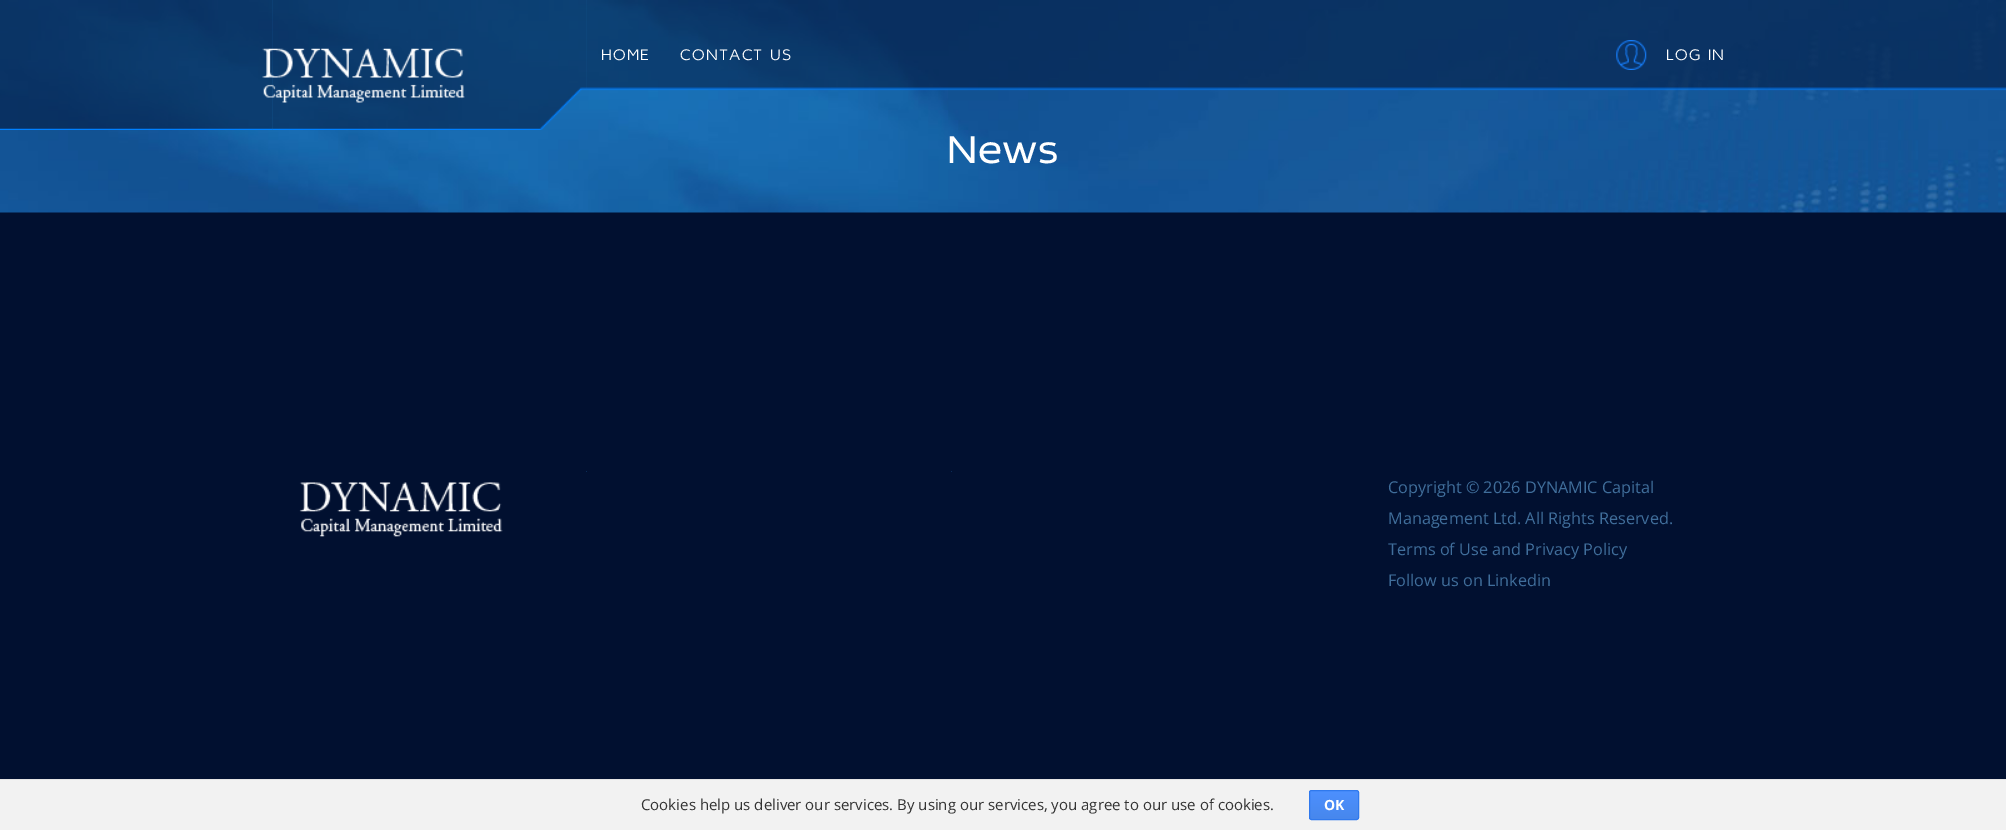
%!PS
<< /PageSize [2006 830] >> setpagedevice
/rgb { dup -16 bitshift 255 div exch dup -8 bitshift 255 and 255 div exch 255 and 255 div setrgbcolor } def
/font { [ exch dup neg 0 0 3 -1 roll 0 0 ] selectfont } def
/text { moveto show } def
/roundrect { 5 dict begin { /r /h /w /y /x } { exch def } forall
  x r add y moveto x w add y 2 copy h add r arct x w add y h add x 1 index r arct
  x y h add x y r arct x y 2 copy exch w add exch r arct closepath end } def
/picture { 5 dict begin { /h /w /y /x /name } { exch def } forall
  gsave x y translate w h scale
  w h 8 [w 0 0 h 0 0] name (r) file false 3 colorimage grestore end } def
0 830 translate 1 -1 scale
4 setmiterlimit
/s1 { /OpenSans-Regular 16.25 font 16#406E9B rgb } def
/s2 { /OpenSans-Regular 15 font 16#333333 rgb } def
/s3 { /OpenSans-Bold 14 font 16#FFFFFF rgb } def
16#011030 rgb
0 0 2006 830 rectfill
(pic7.raw) 0 0 2006 213 picture
(pic4.raw) 586 0 1149 91 picture
(pic2.raw) 272 0 315 130 picture
(pic1.raw) 0 0 273 130 picture
(pic3.raw) 262 48 203 55 picture
/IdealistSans-Light 16.25 font
16#FFFFFF rgb
601 60 moveto 1.25 0 (HOME) ashow
680 60 moveto 1.25 0 (CONTACT US) ashow
(pic5.raw) 1616 40 31 30 picture
1666 60 moveto 1.25 0 (LOG IN) ashow
(pic6.raw) 1735 0 271 91 picture
/IdealistSans-Regular 41 font
947 163 moveto 0.5 0 (News) ashow
16#0A2C58 rgb
586 471 1 1 rectfill
951 471 1 1 rectfill
(pic8.raw) 299 482 204 55 picture
s1
(Copyright © 2026 DYNAMIC Capital) 1388 493 text
(Management Ltd. All Rights Reserved.) 1388 524 text
(Terms of Use and Privacy Policy) 1388 555 text
(Follow us on Linkedin) 1388 586 text
16#F2F2F2 rgb
0 780 2006 50 rectfill
16#E4E4E4 rgb
0 779 2006 1 rectfill
s2
(Cookies help us deliver our services. By using our services, you agree to our use of cookies.) 641 810 text
gsave
1309 790 50 30 2.5 roundrect clip newpath
gsave 1309 791 moveto 1359 791 lineto 1359 819 lineto 1309 819 lineto closepath clip newpath
<< /ShadingType 2 /ColorSpace /DeviceRGB /Coords [1334 791 1334 819] /Extend [true true] /Function << /FunctionType 2 /Domain [0 1] /C0 [0.302 0.565 0.996] /C1 [0.278 0.529 0.929] /N 1 >> >> shfill grestore
grestore
16#3079ED rgb
1309.5 790.5 49 29 2 roundrect stroke
s3
(OK) 1324 810 text
showpage
